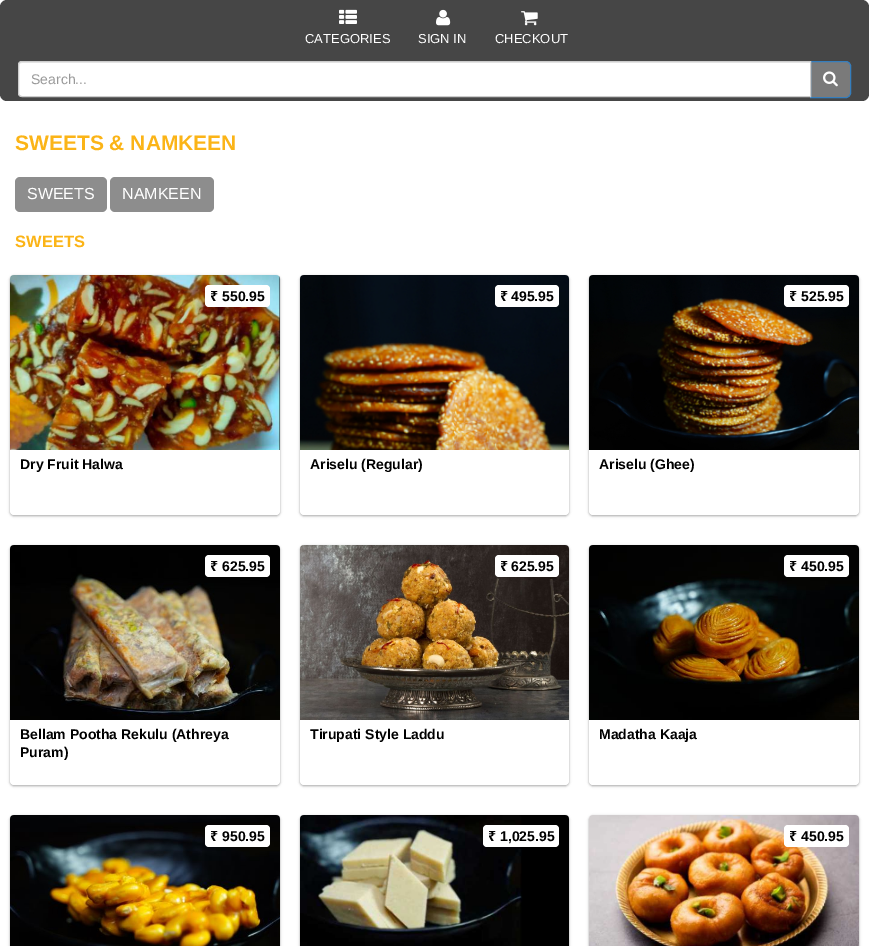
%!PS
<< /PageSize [869 946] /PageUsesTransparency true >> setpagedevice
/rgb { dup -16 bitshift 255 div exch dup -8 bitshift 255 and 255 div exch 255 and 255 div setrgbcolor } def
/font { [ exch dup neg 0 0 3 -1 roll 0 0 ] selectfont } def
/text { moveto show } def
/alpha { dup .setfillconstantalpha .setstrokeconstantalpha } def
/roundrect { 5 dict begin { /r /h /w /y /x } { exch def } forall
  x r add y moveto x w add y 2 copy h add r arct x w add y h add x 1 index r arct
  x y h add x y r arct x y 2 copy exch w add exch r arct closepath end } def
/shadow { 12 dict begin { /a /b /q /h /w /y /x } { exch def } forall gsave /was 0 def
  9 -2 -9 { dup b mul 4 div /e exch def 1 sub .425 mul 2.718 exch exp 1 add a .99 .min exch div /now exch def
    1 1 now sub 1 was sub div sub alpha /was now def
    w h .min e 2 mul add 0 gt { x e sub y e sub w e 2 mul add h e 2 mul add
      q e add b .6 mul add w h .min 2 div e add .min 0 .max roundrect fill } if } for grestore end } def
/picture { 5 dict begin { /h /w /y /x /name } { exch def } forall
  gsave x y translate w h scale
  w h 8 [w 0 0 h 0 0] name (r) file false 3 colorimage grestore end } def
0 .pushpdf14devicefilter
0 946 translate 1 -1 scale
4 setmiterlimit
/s1 { /LiberationSans-Regular 13 font 16#FFFFFF rgb } def
/s2 { /LiberationSans-Regular 14 font 16#999999 rgb } def
/s3 { /LiberationSans-Bold 21 font 16#FBB417 rgb } def
/s4 { /LiberationSans-Regular 16 font 16#FFFFFF rgb } def
/s5 { /LiberationSans-Bold 16.5 font 16#FBB417 rgb } def
/s6 { /NotoSans-Bold 14 font 16#000000 rgb } def
/s7 { /LiberationSans-Bold 14 font 16#000000 rgb } def
16#FFFFFF rgb
0 0 869 946 rectfill
16#464646 rgb
0 0 869 101 7 roundrect fill
(pic1.raw) 339 9 18 15 picture
s1
(CATEGORIES) 305 43 text
(pic2.raw) 436 9 15 17 picture
(SIGN IN) 418 43 text
(pic3.raw) 521 11 17 15 picture
(CHECKOUT) 495 43 text
16#7A7A7A rgb
810.5 61.5 moveto 846 61.5 lineto 848.5 61.5 850.5 63.5 850.5 66 curveto 850.5 93 lineto 850.5 95.5 848.5 97.5 846 97.5 curveto 810.5 97.5 lineto closepath gsave fill grestore
16#357EBD rgb
stroke
16#FFFFFF rgb
22 61 moveto 811 61 lineto 811 97 lineto 22 97 lineto 20 97 18 95 18 93 curveto 18 65 lineto 18 63 20 61 22 61 curveto closepath fill
16#ECECEC rgb
22 63 moveto 810 63 lineto 810 62 lineto 22 62 lineto 20 62 19 64 19 66 curveto 19 64 20 63 22 63 curveto closepath fill
16#CCCCCC rgb
22 61.5 moveto 810.5 61.5 lineto 810.5 96.5 lineto 22 96.5 lineto 20 96.5 18.5 95 18.5 93 curveto 18.5 65 lineto 18.5 63 20 61.5 22 61.5 curveto closepath stroke
s2
(Search...) 31 84 text
(pic4.raw) 823 71 15 16 picture
s3
(SWEETS & NAMKEEN) 15 150 text
16#8D8D8D rgb
15 177 92 35 5 roundrect fill
s4
(SWEETS) 27 199 text
16#8D8D8D rgb
110 177 104 35 5 roundrect fill
s4
(NAMKEEN) 122 199 text
s5
(SWEETS) 15 247 text
16#000000 rgb
10 276 270 240 4 1 0.24 shadow
10 276 270 240 4 1.5 0.12 shadow
16#FFFFFF rgb
10 275 270 240 4 roundrect fill
(pic5.raw) 10 275 270 175 picture
205 285 65 22 4 roundrect fill
s6
(₹) 210 301 text
s7
(550.95) 222 301 text
(Dry Fruit Halwa) 20 469 text
300 276 269 240 4 1 0.24 shadow
300 276 269 240 4 1.5 0.12 shadow
16#FFFFFF rgb
300 275 269 240 4 roundrect fill
(pic6.raw) 300 275 269 175 picture
495 285 64 22 4 roundrect fill
s6
(₹) 500 301 text
s7
(495.95) 511 301 text
(Ariselu \(Regular\)) 310 469 text
589 276 270 240 4 1 0.24 shadow
589 276 270 240 4 1.5 0.12 shadow
16#FFFFFF rgb
589 275 270 240 4 roundrect fill
(pic7.raw) 589 275 270 175 picture
784 285 65 22 4 roundrect fill
s6
(₹) 789 301 text
s7
(525.95) 801 301 text
(Ariselu \(Ghee\)) 599 469 text
10 546 270 240 4 1 0.24 shadow
10 546 270 240 4 1.5 0.12 shadow
16#FFFFFF rgb
10 545 270 240 4 roundrect fill
(pic8.raw) 10 545 270 175 picture
205 555 65 22 4 roundrect fill
s6
(₹) 210 571 text
s7
(625.95) 222 571 text
(Bellam Pootha Rekulu \(Athreya) 20 739 text
(Puram\)) 20 757 text
300 546 269 240 4 1 0.24 shadow
300 546 269 240 4 1.5 0.12 shadow
16#FFFFFF rgb
300 545 269 240 4 roundrect fill
(pic9.raw) 300 545 269 175 picture
495 555 64 22 4 roundrect fill
s6
(₹) 500 571 text
s7
(625.95) 511 571 text
(Tirupati Style Laddu) 310 739 text
589 546 270 240 4 1 0.24 shadow
589 546 270 240 4 1.5 0.12 shadow
16#FFFFFF rgb
589 545 270 240 4 roundrect fill
(pic10.raw) 589 545 270 175 picture
784 555 65 22 4 roundrect fill
s6
(₹) 789 571 text
s7
(450.95) 801 571 text
(Madatha Kaaja) 599 739 text
10 816 270 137 4 1 0.24 shadow
10 816 270 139 4 1.5 0.12 shadow
(pic11.raw) 10 815 270 131 picture
16#FFFFFF rgb
205 825 65 22 4 roundrect fill
s6
(₹) 210 841 text
s7
(950.95) 222 841 text
300 816 269 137 4 1 0.24 shadow
300 816 269 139 4 1.5 0.12 shadow
(pic12.raw) 300 815 269 131 picture
16#FFFFFF rgb
483 825 76 22 4 roundrect fill
s6
(₹) 488 841 text
s7
(1,025.95) 500 841 text
589 816 270 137 4 1 0.24 shadow
589 816 270 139 4 1.5 0.12 shadow
(pic13.raw) 589 815 270 131 picture
16#FFFFFF rgb
784 825 65 22 4 roundrect fill
s6
(₹) 789 841 text
s7
(450.95) 801 841 text
.poppdf14devicefilter showpage
